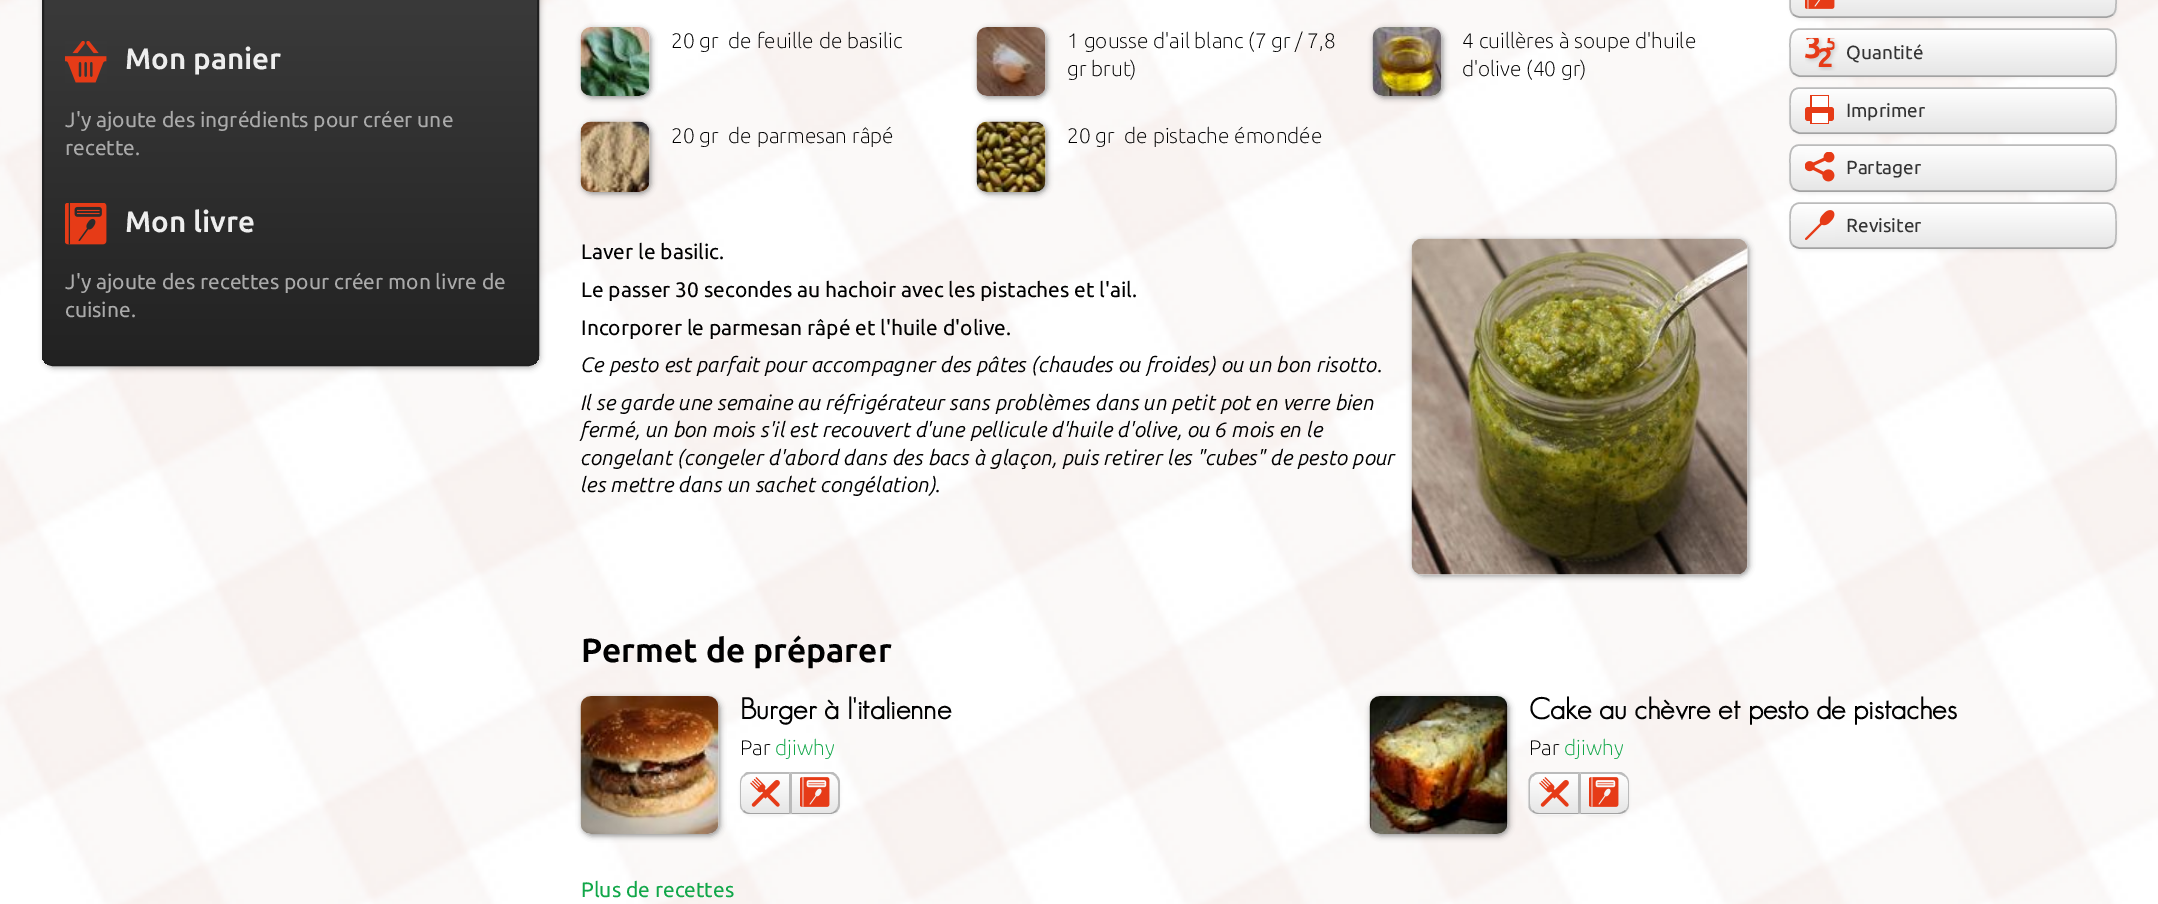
%!PS
<< /PageSize [2158 904] /PageUsesTransparency true >> setpagedevice
/rgb { dup -16 bitshift 255 div exch dup -8 bitshift 255 and 255 div exch 255 and 255 div setrgbcolor } def
/font { [ exch dup neg 0 0 3 -1 roll 0 0 ] selectfont } def
/text { moveto show } def
/alpha { dup .setfillconstantalpha .setstrokeconstantalpha } def
/roundrect { 5 dict begin { /r /h /w /y /x } { exch def } forall
  x r add y moveto x w add y 2 copy h add r arct x w add y h add x 1 index r arct
  x y h add x y r arct x y 2 copy exch w add exch r arct closepath end } def
/shadow { 12 dict begin { /a /b /q /h /w /y /x } { exch def } forall gsave /was 0 def
  9 -2 -9 { dup b mul 4 div /e exch def 1 sub .425 mul 2.718 exch exp 1 add a .99 .min exch div /now exch def
    1 1 now sub 1 was sub div sub alpha /was now def
    w h .min e 2 mul add 0 gt { x e sub y e sub w e 2 mul add h e 2 mul add
      q e add b .6 mul add w h .min 2 div e add .min 0 .max roundrect fill } if } for grestore end } def
/picture { 5 dict begin { /h /w /y /x /name } { exch def } forall
  gsave x y translate w h scale
  w h 8 [w 0 0 h 0 0] name (r) file false 3 colorimage grestore end } def
0 .pushpdf14devicefilter
0 904 translate 1 -1 scale
4 setmiterlimit
/s1 { /Ubuntu-Bold 29.4 font 16#EEEEEE rgb } def
/s2 { /Ubuntu-Regular 21 font 16#AAAAAA rgb } def
/s3 { /Ubuntu-ExtraLight 21 font 16#000000 rgb } def
/s4 { /Ubuntu-Regular 21 font 16#000000 rgb } def
/s5 { /Ubuntu-Italic 21 font 16#000000 rgb } def
/s6 { /Ubuntu-Regular 19 font 16#333333 rgb } def
/s7 { /Ubuntu-Bold 33.5 font 16#000000 rgb } def
/s8 { /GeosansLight-Bold 29.4 font 16#000000 rgb } def
/s9 { /Ubuntu-ExtraLight 21 font 16#11A749 rgb } def
/s10 { /Ubuntu-Regular 21 font 16#11A749 rgb } def
16#FFFFFF rgb
0 0 2158 904 rectfill
(pic1.raw) 0 0 2158 904 picture
16#000000 rgb
44 -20 496 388 11 3 0.3 shadow
gsave
42 -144 497 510 11 roundrect clip newpath
gsave 42 0 moveto 539 0 lineto 539 365 lineto 42 365 lineto closepath clip newpath
<< /ShadingType 2 /ColorSpace /DeviceRGB /Coords [290 -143 290 365] /Extend [true true] /Function << /FunctionType 2 /Domain [0 1] /C0 [0.267 0.267 0.267] /C1 [0.133 0.133 0.133] /N 1 >> >> shfill grestore
grestore
16#202020 rgb
2 setlinewidth
43 -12 495 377 10 roundrect stroke
(pic2.raw) 65 41 42 42 picture
s1
(Mon panier) 125 69 text
s2
(J'y ajoute des ingrédients pour créer une) 65 127 text
(recette.) 65 155 text
(pic3.raw) 65 203 42 42 picture
s1
(Mon livre) 125 232 text
s2
(J'y ajoute des recettes pour créer mon livre de) 65 289 text
(cuisine.) 65 317 text
16#909090 rgb
582 29 69 69 11 3 1 shadow
(pic4.raw) 580 27 70 69 picture
s3
(20 gr  de feuille de basilic) 671 48 text
16#909090 rgb
978 29 69 69 11 3 1 shadow
(pic5.raw) 976 27 70 69 picture
s3
(1 gousse d'ail blanc \(7 gr / 7,8) 1067 48 text
(gr brut\)) 1067 76 text
16#909090 rgb
1374 29 69 69 11 3 1 shadow
(pic6.raw) 1372 27 70 69 picture
s3
(4 cuillères à soupe d'huile) 1462 48 text
(d'olive \(40 gr\)) 1462 76 text
16#909090 rgb
582 123 69 71 11 3 1 shadow
(pic7.raw) 580 121 70 71 picture
s3
(20 gr  de parmesan râpé) 671 143 text
16#909090 rgb
978 123 69 71 11 3 1 shadow
(pic8.raw) 976 121 70 71 picture
s3
(20 gr  de pistache émondée) 1067 143 text
s4
(Laver le basilic.) 581 259 text
(Le passer 30 secondes au hachoir avec les pistaches et l'ail.) 581 297 text
(Incorporer le parmesan râpé et l'huile d'olive.) 581 335 text
16#909090 rgb
1413 240 336 336 11 3 1 shadow
(pic9.raw) 1411 238 337 337 picture
s5
(Ce pesto est parfait pour accompagner des pâtes \(chaudes ou froides\) ou un bon risotto.) 581 372 text
(Il se garde une semaine au réfrigérateur sans problèmes dans un petit pot en verre bien) 581 410 text
(fermé, un bon mois s'il est recouvert d'une pellicule d'huile d'olive, ou 6 mois en le) 581 437 text
(congelant \(congeler d'abord dans des bacs à glaçon, puis retirer les "cubes" de pesto pour) 581 465 text
(les mettre dans un sachet congélation\).) 581 492 text
1790 -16 327 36 11 1.5 0.05 shadow
16#F5F5F5 rgb
1790 -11 327 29 11 roundrect fill
gsave
1790 -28 327 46 11 roundrect clip newpath
gsave 1790 0 moveto 2117 0 lineto 2117 17 lineto 1790 17 lineto closepath clip newpath
<< /ShadingType 2 /ColorSpace /DeviceRGB /Coords [1953 -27 1953 17] /Extend [true true] /Function << /FunctionType 2 /Domain [0 1] /C0 [1 1 1] /C1 [0.902 0.902 0.902] /N 1 >> >> shfill grestore
grestore
16#A2A2A2 rgb
1.5 setlinewidth
2113 14.5 moveto 2111 16 2108.5 17 2106 17 curveto 1800 17 lineto 1797.5 17 1795 16 1793 14.5 curveto stroke
16#BBBBBB rgb
1793 14.5 moveto 1790 11.5 1790 7.5 1790 3.5 curveto 1790 -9.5 lineto 1790 -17 1789.5 -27.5 1800 -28 curveto 2106 -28 lineto 2116.5 -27.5 2116 -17 2116 -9.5 curveto 2116 3 lineto 2116 7.5 2116 11.5 2113 14.5 curveto stroke
(pic10.raw) 1805 0 30 9 picture
16#000000 rgb
1790 30 327 48 11 1.5 0.05 shadow
16#F5F5F5 rgb
1790 29 327 48 11 roundrect fill
gsave
1790 29 327 48 11 roundrect clip newpath
gsave 1790 30 moveto 2117 30 lineto 2117 75 lineto 1790 75 lineto closepath clip newpath
<< /ShadingType 2 /ColorSpace /DeviceRGB /Coords [1953 30 1953 75] /Extend [true true] /Function << /FunctionType 2 /Domain [0 1] /C0 [1 1 1] /C1 [0.902 0.902 0.902] /N 1 >> >> shfill grestore
grestore
16#A2A2A2 rgb
2113 73 moveto 2111 74.5 2108.5 76 2106 76 curveto 1800 76 lineto 1797.5 76 1795 74.5 1793 73 curveto stroke
16#BBBBBB rgb
1793 73 moveto 1790 69.5 1790 65.5 1790 61.5 curveto 1790 48 lineto 1790 40.5 1789 29.5 1800 29 curveto 2106 29 lineto 2117 29.5 2116 40.5 2116 48 curveto 2116 61.5 lineto 2116 65.5 2116 69.5 2113 73 curveto stroke
(pic11.raw) 1805 37 34 34 picture
s6
(Quantité) 1846 59 text
16#000000 rgb
1790 89 327 46 11 1.5 0.05 shadow
16#F5F5F5 rgb
1790 87 327 47 11 roundrect fill
gsave
1790 87 327 47 11 roundrect clip newpath
gsave 1790 89 moveto 2117 89 lineto 2117 132 lineto 1790 132 lineto closepath clip newpath
<< /ShadingType 2 /ColorSpace /DeviceRGB /Coords [1953 88 1953 132] /Extend [true true] /Function << /FunctionType 2 /Domain [0 1] /C0 [1 1 1] /C1 [0.902 0.902 0.902] /N 1 >> >> shfill grestore
grestore
16#A2A2A2 rgb
2113 130 moveto 2111 131.5 2108.5 133 2106 133 curveto 1800 133 lineto 1797.5 133 1795 131.5 1793 130 curveto stroke
16#BBBBBB rgb
1793 130 moveto 1790 127 1790 123 1790 119 curveto 1790 106 lineto 1790 98.5 1789.5 88 1800 88 curveto 2106 88 lineto 2116.5 88 2116 98.5 2116 106 curveto 2116 119 lineto 2116 123 2116 127 2113 130 curveto stroke
16#E63B17 rgb
1805 107 29 14 3 roundrect fill
1810 95 19 29 0.5 roundrect fill
16#FFFFFF rgb
1812 96 16 11 rectfill
1812 113 16 10 rectfill
s6
(Imprimer) 1846 117 text
16#000000 rgb
1790 146 327 48 11 1.5 0.05 shadow
16#F5F5F5 rgb
1790 144 327 48 11 roundrect fill
gsave
1790 144 327 48 11 roundrect clip newpath
gsave 1790 146 moveto 2117 146 lineto 2117 191 lineto 1790 191 lineto closepath clip newpath
<< /ShadingType 2 /ColorSpace /DeviceRGB /Coords [1953 145 1953 191] /Extend [true true] /Function << /FunctionType 2 /Domain [0 1] /C0 [1 1 1] /C1 [0.902 0.902 0.902] /N 1 >> >> shfill grestore
grestore
16#A2A2A2 rgb
2113 188.5 moveto 2111 190 2108.5 191 2106 191 curveto 1800 191 lineto 1797.5 191 1795 190 1793 188.5 curveto stroke
16#BBBBBB rgb
1793 188.5 moveto 1790 185 1790 181 1790 177 curveto 1790 163.5 lineto 1790 156 1789 145 1800 145 curveto 2106 145 lineto 2117 145 2116 156 2116 163.5 curveto 2116 177 lineto 2116 181 2116 185 2113 188.5 curveto stroke
(pic12.raw) 1805 152 30 30 picture
s6
(Partager) 1846 174 text
16#000000 rgb
1790 204 327 47 11 1.5 0.05 shadow
16#F5F5F5 rgb
1790 203 327 46 11 roundrect fill
gsave
1790 203 327 46 11 roundrect clip newpath
gsave 1790 204 moveto 2117 204 lineto 2117 248 lineto 1790 248 lineto closepath clip newpath
<< /ShadingType 2 /ColorSpace /DeviceRGB /Coords [1953 204 1953 248] /Extend [true true] /Function << /FunctionType 2 /Domain [0 1] /C0 [1 1 1] /C1 [0.902 0.902 0.902] /N 1 >> >> shfill grestore
grestore
16#A2A2A2 rgb
2113 245.5 moveto 2111 247 2108.5 248 2106 248 curveto 1800 248 lineto 1797.5 248 1795 247 1793 245.5 curveto stroke
16#BBBBBB rgb
1793 245.5 moveto 1790 242.5 1790 238.5 1790 234 curveto 1790 221.5 lineto 1790 214 1789.5 203.5 1800 203 curveto 2106 203 lineto 2116.5 203.5 2116 214 2116 221.5 curveto 2116 234 lineto 2116 238.5 2116 242.5 2113 245.5 curveto stroke
(pic13.raw) 1805 210 30 30 picture
s6
(Revisiter) 1846 232 text
s7
(Permet de préparer) 581 662 text
16#909090 rgb
582 698 138 138 11 3 1 shadow
(pic14.raw) 580 696 139 138 picture
s8
(Burger à l'italienne) 740 719 text
s3
(Par) 740 755 text
s9
(djiwhy) 775 755 text
16#000000 rgb
740 774 51 42 11 1.5 0.05 shadow
16#F5F5F5 rgb
751 773 moveto 791 773 lineto 791 815 lineto 751 815 lineto 745 815 740 810 740 804 curveto 740 784 lineto 740 778 745 773 751 773 curveto closepath fill
gsave
751 773 moveto 791 773 lineto 791 815 lineto 751 815 lineto 745 815 740 810 740 804 curveto 740 784 lineto 740 778 745 773 751 773 curveto closepath clip newpath
gsave 740 774 moveto 789 774 lineto 789 813 lineto 740 813 lineto closepath clip newpath
<< /ShadingType 2 /ColorSpace /DeviceRGB /Coords [765 774 765 813] /Extend [true true] /Function << /FunctionType 2 /Domain [0 1] /C0 [1 1 1] /C1 [0.902 0.902 0.902] /N 1 >> >> shfill grestore
grestore
16#BBBBBB rgb
750 774 moveto 748 774 745 775 744 777 curveto 743 776 lineto 744 774 745 773 747 772 curveto 790 772 lineto 789 774 lineto closepath fill
790 773 moveto 790 814 lineto 789 813 lineto 789 774 lineto closepath fill
16#A2A2A2 rgb
790 814 moveto 789 813 lineto 750 813 lineto 748 813 745 812 744 810 curveto 743 811 lineto 744 813 747 814 750 814 curveto closepath fill
16#BBBBBB rgb
743 811 moveto 741 809.5 740 807 740 804 curveto 740 783 lineto 740 780 741 777.5 742.5 775.5 curveto 743.5 776.5 lineto 742 778 741 780.5 741 783 curveto 741 804 lineto 741 806.5 742 809 743.5 810.5 curveto closepath fill
(pic15.raw) 750 777 30 30 picture
16#000000 rgb
791 774 49 42 11 1.5 0.05 shadow
16#F5F5F5 rgb
791 773 moveto 829 773 lineto 835 773 840 778 840 784 curveto 840 804 lineto 840 810 835 815 829 815 curveto 791 815 lineto closepath fill
gsave
791 773 moveto 829 773 lineto 835 773 840 778 840 784 curveto 840 804 lineto 840 810 835 815 829 815 curveto 791 815 lineto closepath clip newpath
gsave 792 774 moveto 840 774 lineto 840 813 lineto 792 813 lineto closepath clip newpath
<< /ShadingType 2 /ColorSpace /DeviceRGB /Coords [815 774 815 813] /Extend [true true] /Function << /FunctionType 2 /Domain [0 1] /C0 [1 1 1] /C1 [0.902 0.902 0.902] /N 1 >> >> shfill grestore
grestore
0.2 alpha
16#FFFFFF rgb
792 776 moveto 830 776 lineto 834 776 838 780 838 784 curveto 838 806 lineto 838 807 838 809 837 810 curveto 838 808 839 806 839 804 curveto 839 783 lineto 839 778 835 774 830 774 curveto 792 774 lineto closepath fill
1 alpha
16#BBBBBB rgb
792 774 moveto 790 772 lineto 833 772 lineto 837 775 lineto 836 777 lineto 834 775 832 774 830 774 curveto closepath fill
840 804 moveto 840 783 lineto 840 780 839 777.5 837 775.5 curveto 835.5 777 lineto 837 778.5 838 780.5 838 783 curveto 838 804 lineto 838 806.5 837 808.5 835.5 810 curveto 837 811.5 lineto 838.5 809.5 840 807 840 804 curveto closepath fill
16#A2A2A2 rgb
837 811 moveto 835 813 832 814 830 814 curveto 791 814 lineto 792 813 lineto 830 813 lineto 832 813 834 812 836 810 curveto closepath fill
16#BBBBBB rgb
792 774 moveto 792 813 lineto 790 814 lineto 790 772 lineto closepath fill
(pic16.raw) 800 777 30 30 picture
16#909090 rgb
1371 698 138 138 11 3 1 shadow
(pic17.raw) 1369 696 139 138 picture
s8
(Cake au chèvre et pesto de pistaches) 1529 719 text
s3
(Par) 1529 755 text
s9
(djiwhy) 1564 755 text
16#000000 rgb
1529 774 51 42 11 1.5 0.05 shadow
16#F5F5F5 rgb
1540 773 moveto 1580 773 lineto 1580 815 lineto 1540 815 lineto 1534 815 1529 810 1529 804 curveto 1529 784 lineto 1529 778 1534 773 1540 773 curveto closepath fill
gsave
1540 773 moveto 1580 773 lineto 1580 815 lineto 1540 815 lineto 1534 815 1529 810 1529 804 curveto 1529 784 lineto 1529 778 1534 773 1540 773 curveto closepath clip newpath
gsave 1529 774 moveto 1578 774 lineto 1578 813 lineto 1529 813 lineto closepath clip newpath
<< /ShadingType 2 /ColorSpace /DeviceRGB /Coords [1554 774 1554 813] /Extend [true true] /Function << /FunctionType 2 /Domain [0 1] /C0 [1 1 1] /C1 [0.902 0.902 0.902] /N 1 >> >> shfill grestore
grestore
16#BBBBBB rgb
1539 774 moveto 1536 774 1534 775 1533 777 curveto 1531 775 lineto 1536 772 lineto 1580 772 lineto 1578 774 lineto closepath fill
1580 772 moveto 1580 814 lineto 1578 813 lineto 1578 774 lineto closepath fill
16#A2A2A2 rgb
1579 814 moveto 1539 814 lineto 1536 814 1533 813 1532 811 curveto 1533 810 lineto 1534 812 1536 813 1539 813 curveto 1578 813 lineto closepath fill
16#BBBBBB rgb
1528.5 780 moveto 1529 778 1530 776.5 1531 775 curveto 1532.5 776.5 lineto 1531 778 1530 780.5 1530 783 curveto 1530 804 lineto 1530 806.5 1531 809 1532.5 810.5 curveto 1531.5 811.5 lineto 1530 810.5 1529 809 1528.5 807 curveto closepath fill
(pic15.raw) 1539 777 30 30 picture
16#000000 rgb
1580 774 49 42 11 1.5 0.05 shadow
16#F5F5F5 rgb
1580 773 moveto 1618 773 lineto 1624 773 1629 778 1629 784 curveto 1629 804 lineto 1629 810 1624 815 1618 815 curveto 1580 815 lineto closepath fill
gsave
1580 773 moveto 1618 773 lineto 1624 773 1629 778 1629 784 curveto 1629 804 lineto 1629 810 1624 815 1618 815 curveto 1580 815 lineto closepath clip newpath
gsave 1581 774 moveto 1629 774 lineto 1629 813 lineto 1581 813 lineto closepath clip newpath
<< /ShadingType 2 /ColorSpace /DeviceRGB /Coords [1604 774 1604 813] /Extend [true true] /Function << /FunctionType 2 /Domain [0 1] /C0 [1 1 1] /C1 [0.902 0.902 0.902] /N 1 >> >> shfill grestore
grestore
16#BBBBBB rgb
1581 774 moveto 1580 772 lineto 1621 772 lineto 1623 773 1625 774 1626 776 curveto 1625 777 lineto 1623 775 1620 774 1618 774 curveto closepath fill
1629 804 moveto 1629 783 lineto 1629 780 1628 777.5 1626 775.5 curveto 1625 776.5 lineto 1627 778 1628 780.5 1628 783 curveto 1628 804 lineto 1628 806.5 1627 809 1625 810.5 curveto 1626 811 lineto 1628 809.5 1629 807 1629 804 curveto closepath fill
16#A2A2A2 rgb
1626 811 moveto 1624 813 1621 814 1618 814 curveto 1580 814 lineto 1581 813 lineto 1618 813 lineto 1620 813 1623 812 1625 810 curveto closepath fill
16#BBBBBB rgb
1581 774 moveto 1580 773 lineto 1580 814 lineto 1581 813 lineto closepath fill
(pic16.raw) 1589 777 30 30 picture
s10
(Plus de recettes) 581 897 text
.poppdf14devicefilter showpage
